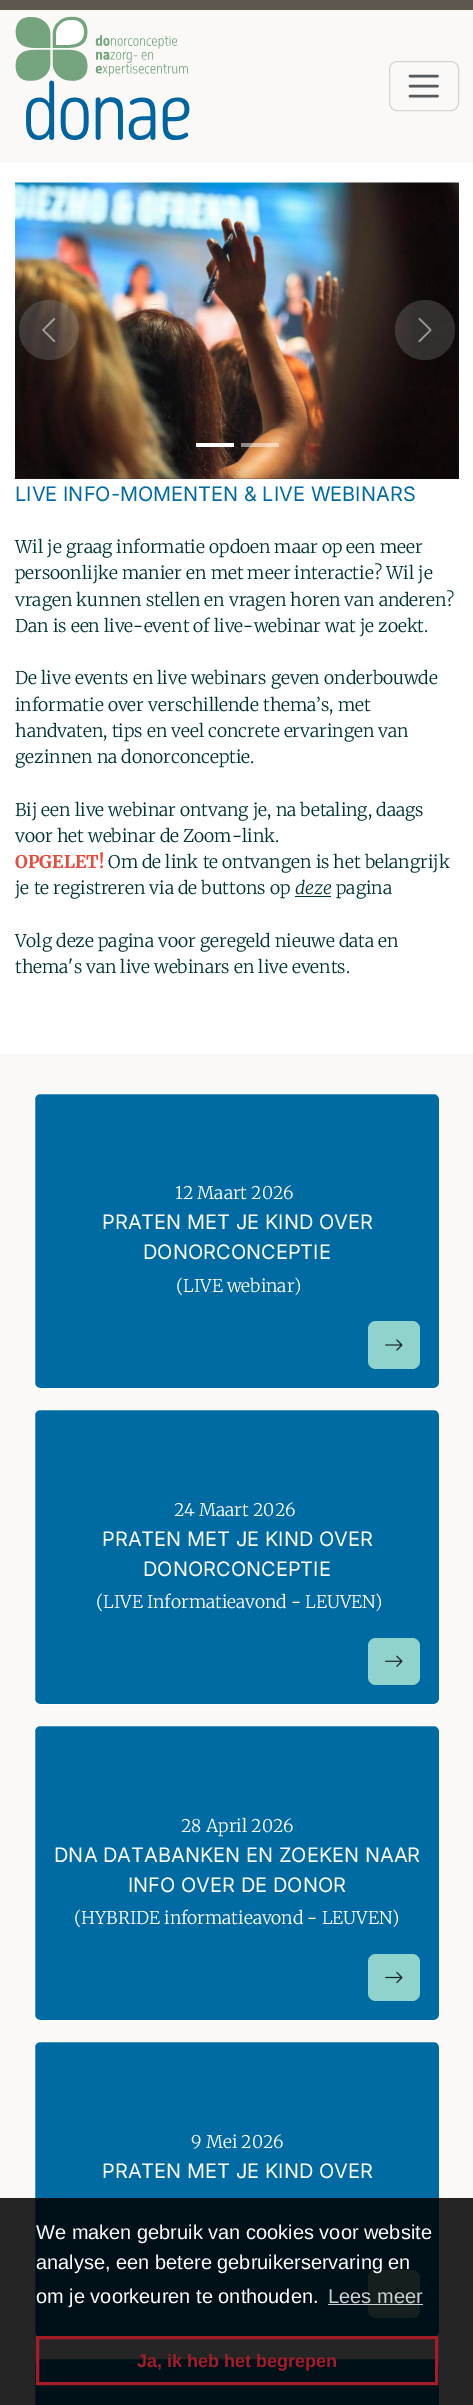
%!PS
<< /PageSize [473 2405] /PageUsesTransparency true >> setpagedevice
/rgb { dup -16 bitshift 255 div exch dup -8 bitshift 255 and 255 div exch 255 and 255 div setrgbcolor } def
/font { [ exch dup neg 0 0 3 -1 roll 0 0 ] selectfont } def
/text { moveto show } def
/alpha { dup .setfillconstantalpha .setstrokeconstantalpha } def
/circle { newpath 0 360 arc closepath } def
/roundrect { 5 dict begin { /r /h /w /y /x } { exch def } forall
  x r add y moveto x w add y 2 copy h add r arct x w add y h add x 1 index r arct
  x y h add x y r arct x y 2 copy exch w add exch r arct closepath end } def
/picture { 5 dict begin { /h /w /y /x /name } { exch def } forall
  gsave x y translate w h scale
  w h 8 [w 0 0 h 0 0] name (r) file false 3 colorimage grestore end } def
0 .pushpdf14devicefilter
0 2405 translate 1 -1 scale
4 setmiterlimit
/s1 { /Inter-Regular 20 font 16#006BA3 rgb } def
/s2 { /Merriweather-Light 17.5 font 16#003333 rgb } def
/s3 { /Merriweather-Bold 17.5 font 16#E74C3C rgb } def
/s4 { /Merriweather-LightItalic 17.5 font 16#003333 rgb } def
/s5 { /Merriweather-Light 17.5 font 16#FFFFFF rgb } def
/s6 { /Inter-Regular 20 font 16#FFFFFF rgb } def
/s7 { /LiberationSans-Regular 20 font 16#FFFFFF rgb } def
/s8 { /LiberationSans-Regular 20 font 16#CED1D1 rgb } def
/s9 { /LiberationSans-Bold 18 font 16#A41C29 rgb } def
16#FFFFFF rgb
0 0 473 2405 rectfill
16#5D574E rgb
0 0 473 10 rectfill
16#FAF9F7 rgb
0 10 473 153 rectfill
(pic1.raw) 15 16 175 124 picture
16#D5D4D2 rgb
389.5 61.5 69 49 7.5 roundrect stroke
16#575A5D rgb
2.5 setlinewidth
1 setlinecap
410 76 moveto 437.5 76 lineto 410 86 moveto 437.5 86 lineto 410 96 moveto 437.5 96 lineto stroke
16#212529 rgb
15 183 444 296 rectfill
(pic2.raw) 15 182 444 297 picture
0.25 alpha
16#A0A0A0 rgb
49 330 30 circle fill
1 alpha
(pic3.raw) 42 317 14 26 picture
0.25 alpha
425 330 30 circle fill
1 alpha
(pic4.raw) 418 317 14 26 picture
16#FFFFFF rgb
196 443 38 4 rectfill
0.5 alpha
241 443 38 4 rectfill
1 alpha
s1
(LIVE INFO-MOMENTEN & LIVE WEBINARS) 15 501 text
s2
(Wil je graag informatie opdoen maar op een meer) 15 553 text
(persoonlijke manier en met meer interactie? Wil je) 15 579 text
(vragen kunnen stellen en vragen horen van anderen?) 15 606 text
(Dan is een live-event of live-webinar wat je zoekt.) 15 632 text
(De live events en live webinars geven onderbouwde) 15 684 text
(informatie over verschillende thema’s, met) 15 711 text
(handvaten, tips en veel concrete ervaringen van) 15 737 text
(gezinnen na donorconceptie.) 15 763 text
(Bij een live webinar ontvang je, na betaling, daags) 15 816 text
(voor het webinar de Zoom-link.) 15 842 text
s3
(OPGELET!) 15 868 text
s2
(Om de link te ontvangen is het belangrijk) 108 868 text
(je te registreren via de buttons op) 15 894 text
s4
(deze) 295 894 text
295 896 36 1 rectfill
s2
(pagina) 336 894 text
(Volg deze pagina voor geregeld nieuwe data en) 15 947 text
(thema's van live webinars en live events.) 15 973 text
16#FAF9F7 rgb
0 1054 473 1351 rectfill
16#006BA3 rgb
34.5 1093.5 405 295 5.5 roundrect gsave fill grestore
16#FFFFFF rgb
1 setlinewidth
0 setlinecap
stroke
(12 Maart 2026) 175 1199 text
s6
(PRATEN MET JE KIND OVER) 102 1229 text
(DONORCONCEPTIE) 143 1259 text
s5
(\(LIVE webinar\)) 176 1292 text
16#90D2CC rgb
368 1321 52 48 8 roundrect fill
(pic5.raw) 385 1339 18 12 picture
16#006BA3 rgb
34.5 1409.5 405 295 5.5 roundrect gsave fill grestore
16#FFFFFF rgb
stroke
(24 Maart 2026) 174 1516 text
s6
(PRATEN MET JE KIND OVER) 102 1546 text
(DONORCONCEPTIE) 143 1576 text
s5
(\(LIVE Informatieavond - LEUVEN\)) 96 1608 text
16#90D2CC rgb
368 1638 52 47 8 roundrect fill
(pic6.raw) 385 1655 18 12 picture
16#006BA3 rgb
34.5 1725.5 405 295 5.5 roundrect gsave fill grestore
16#FFFFFF rgb
stroke
(28 April 2026) 181 1832 text
s6
(DNA DATABANKEN EN ZOEKEN NAAR) 54 1862 text
(INFO OVER DE DONOR) 128 1892 text
s5
(\(HYBRIDE informatieavond - LEUVEN\)) 74 1924 text
16#90D2CC rgb
368 1954 52 47 8 roundrect fill
(pic7.raw) 385 1972 18 11 picture
16#006BA3 rgb
34.5 2041.5 405 296 5.5 roundrect gsave fill grestore
16#FFFFFF rgb
stroke
(9 Mei 2026) 191 2148 text
s6
(PRATEN MET JE KIND OVER) 102 2178 text
16#90D2CC rgb
368 2270 52 48 8 roundrect fill
(pic8.raw) 385 2288 18 12 picture
16#006BA3 rgb
34.5 2358.5 405 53 5.5 roundrect gsave fill grestore
16#FFFFFF rgb
stroke
0.85 alpha
16#000000 rgb
0 2198 473 207 rectfill
1 alpha
s7
(We maken gebruik van cookies voor website) 36 2239 text
(analyse, een betere gebruikerservaring en) 36 2269 text
(om je voorkeuren te onthouden.) 36 2303 text
s8
(Lees meer) 328 2303 text
0.8 alpha
16#FFFFFF rgb
328 2304 95 1 rectfill
1 alpha
16#A41C29 rgb
3 setlinewidth
37.5 2337.5 399 46 rectstroke
s9
(Ja, ik heb het begrepen) 137 2367 text
.poppdf14devicefilter showpage
